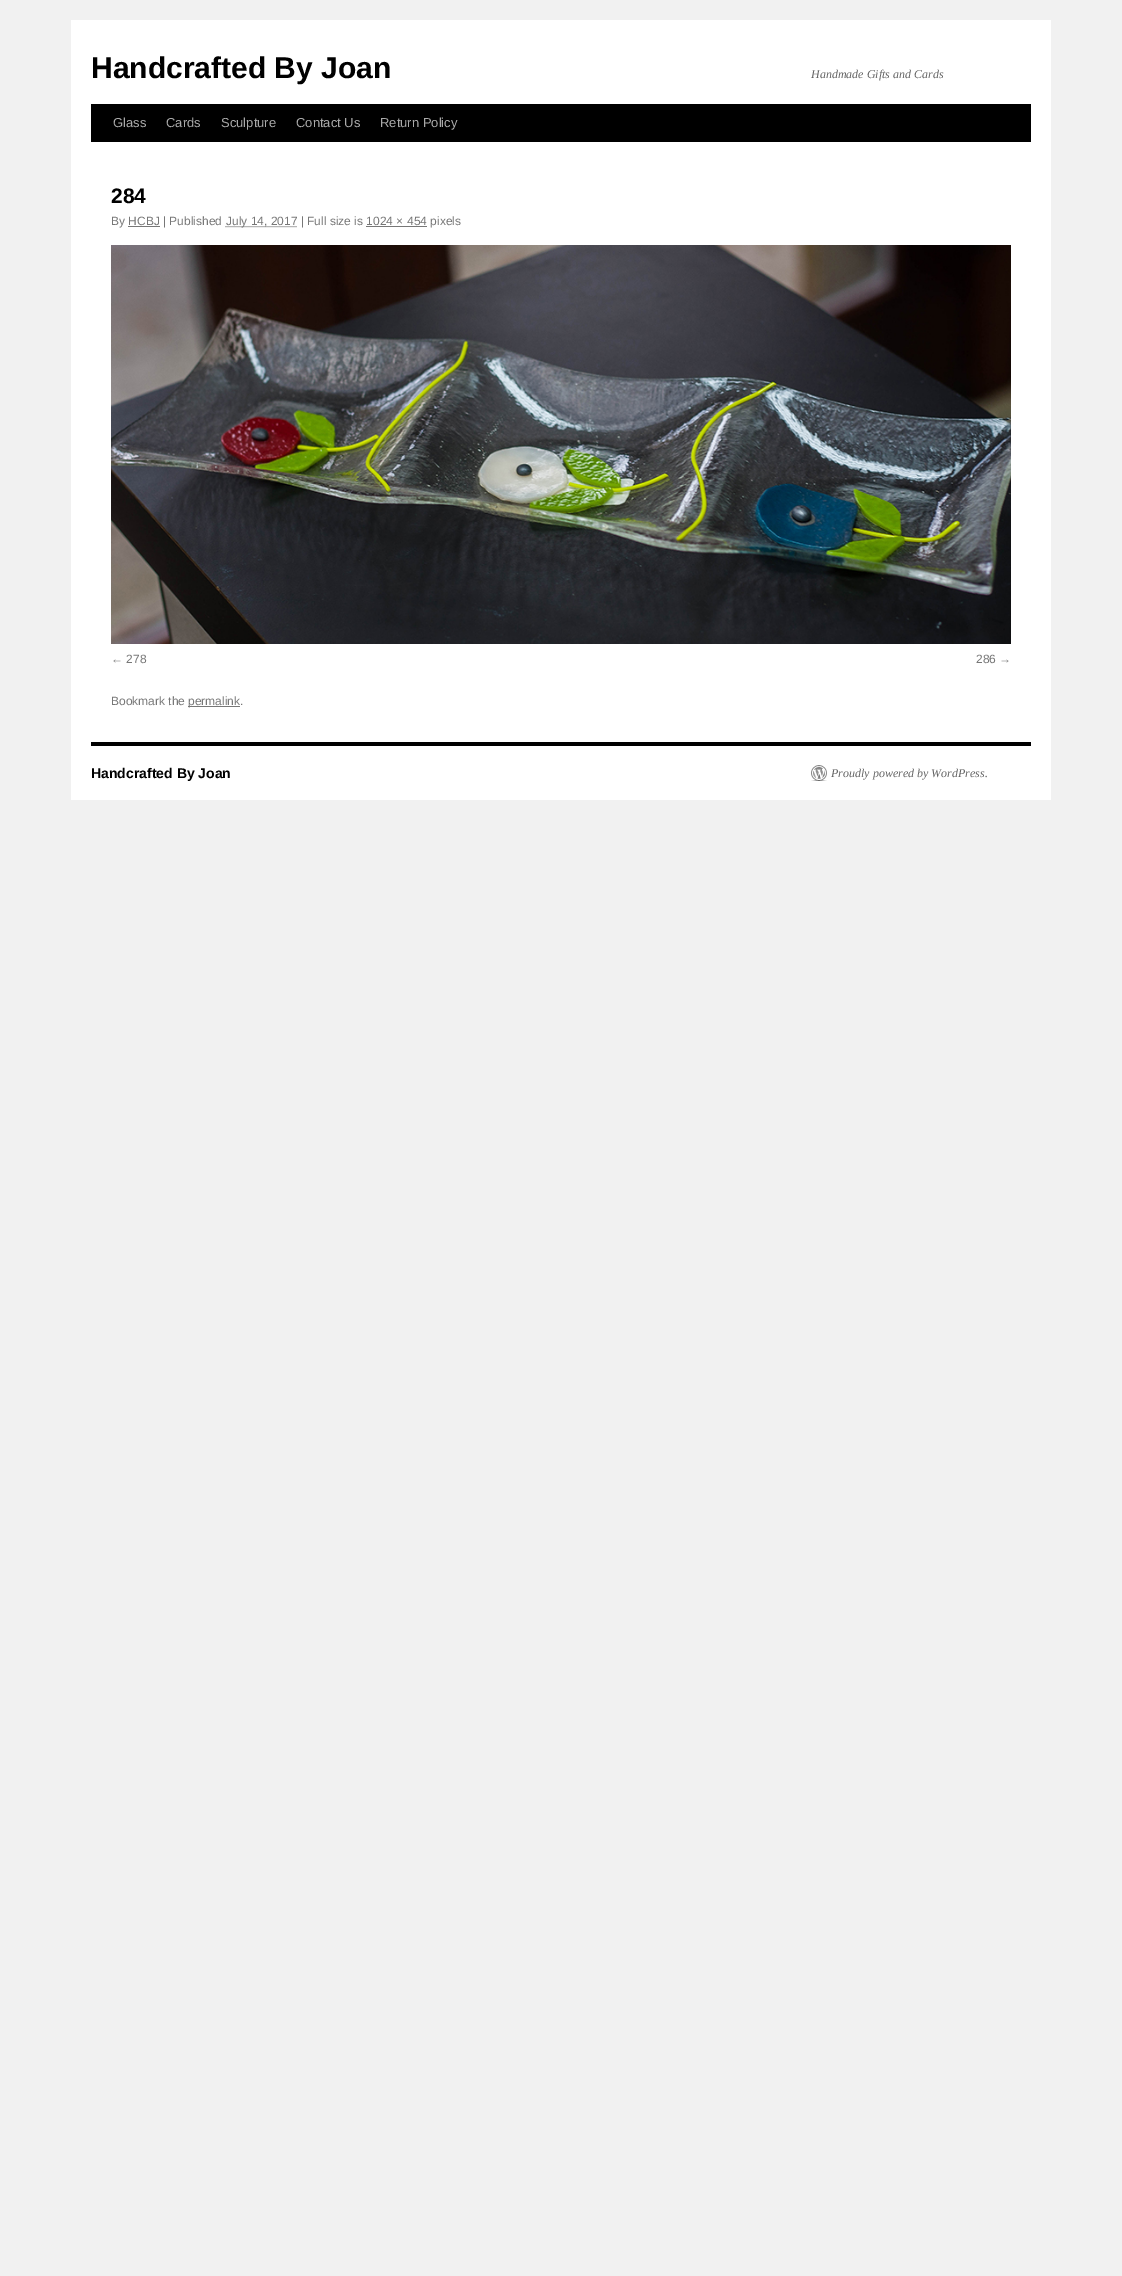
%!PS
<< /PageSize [1122 2276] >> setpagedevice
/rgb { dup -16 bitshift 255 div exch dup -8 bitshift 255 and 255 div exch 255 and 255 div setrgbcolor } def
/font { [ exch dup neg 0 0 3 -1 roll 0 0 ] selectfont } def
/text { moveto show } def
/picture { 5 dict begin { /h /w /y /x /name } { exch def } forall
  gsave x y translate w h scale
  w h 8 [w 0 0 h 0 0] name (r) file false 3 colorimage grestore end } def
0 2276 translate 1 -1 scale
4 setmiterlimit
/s1 { /LiberationSans-Bold 30 font 16#000000 rgb } def
/s2 { /LiberationSerif-Italic 12 font 16#666666 rgb } def
/s3 { /LiberationSans-Regular 13 font 16#AAAAAA rgb } def
/s4 { /LiberationSans-Bold 21 font 16#000000 rgb } def
/s5 { /LiberationSans-Regular 12 font 16#777777 rgb } def
/s6 { /LiberationSans-Bold 14 font 16#000000 rgb } def
16#F1F1F1 rgb
0 0 1122 2276 rectfill
16#FFFFFF rgb
71 20 980 780 rectfill
s1
(Handcrafted By Joan) 91 78 text
s2
(Handmade Gifts and Cards) 811 78 text
16#000000 rgb
91 104 940 38 rectfill
s3
(Glass) 113 127 text
(Cards) 166 127 text
(Sculpture) 221 127 text
(Contact Us) 296 127 text
(Return Policy) 380 127 text
s4
(284) 111 203 text
s5
(By HCBJ | Published) 111 225 text
[1 1] 0 setdash
225.5 226.5 moveto 297 226.5 lineto stroke
(July 14, 2017 | Full size is 1024 × 454 pixels) 226 225 text
128 226 32 1 rectfill
366 226 61 1 rectfill
(pic1.raw) 111 245 900 399 picture
(← 278) 111 663 text
(286 →) 976 663 text
(Bookmark the) 111 705 text
188 706 52 1 rectfill
(permalink.) 188 705 text
16#000000 rgb
91 742 940 4 rectfill
s6
(Handcrafted By Joan) 91 778 text
(pic2.raw) 811 765 16 16 picture
s2
(Proudly powered by WordPress.) 831 777 text
showpage
